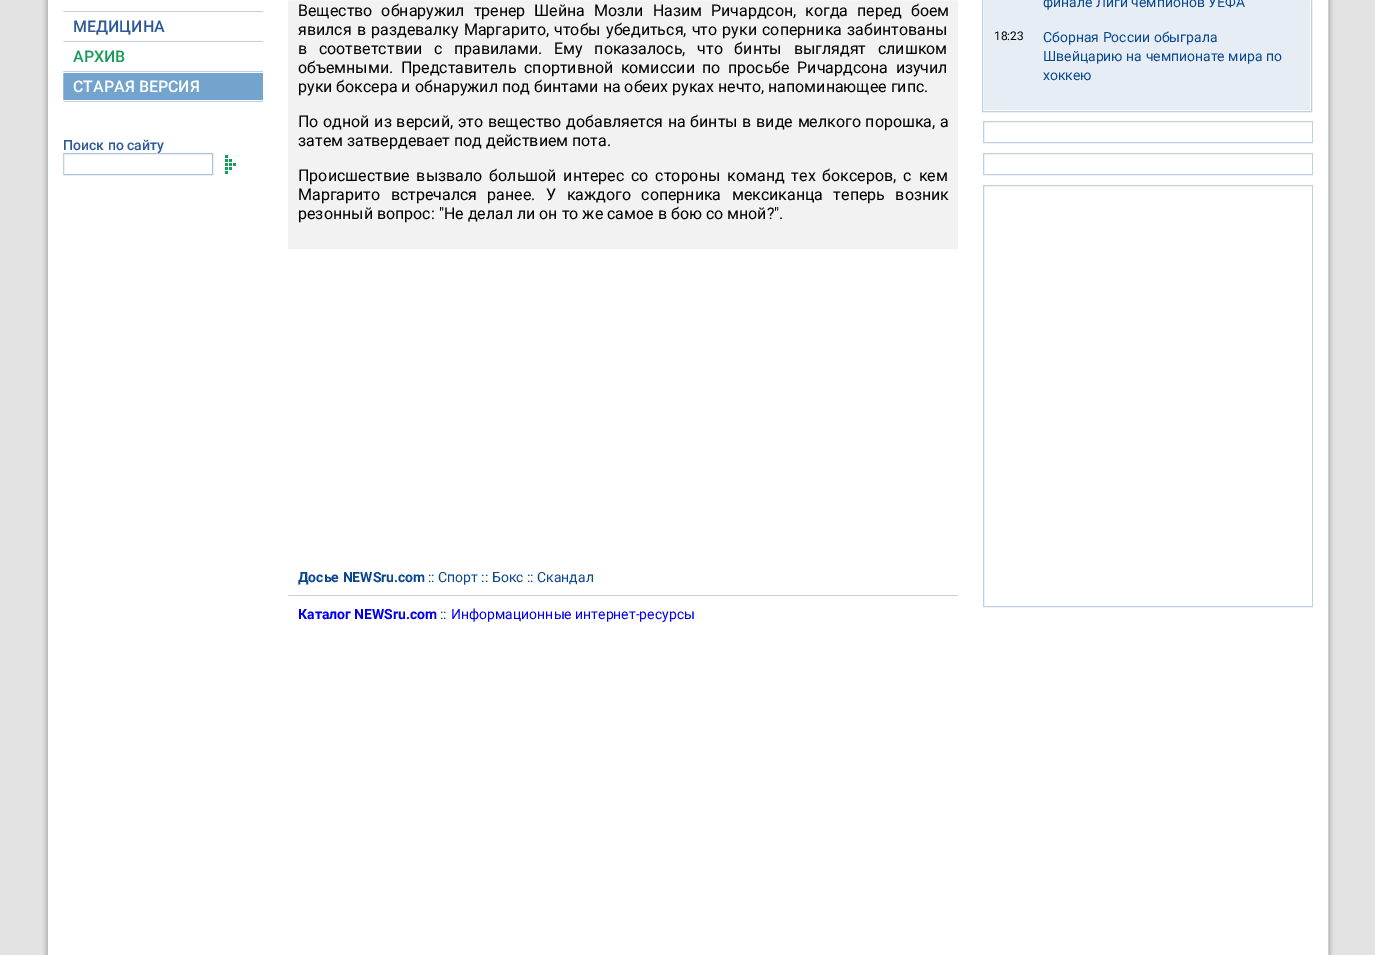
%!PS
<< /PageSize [1375 955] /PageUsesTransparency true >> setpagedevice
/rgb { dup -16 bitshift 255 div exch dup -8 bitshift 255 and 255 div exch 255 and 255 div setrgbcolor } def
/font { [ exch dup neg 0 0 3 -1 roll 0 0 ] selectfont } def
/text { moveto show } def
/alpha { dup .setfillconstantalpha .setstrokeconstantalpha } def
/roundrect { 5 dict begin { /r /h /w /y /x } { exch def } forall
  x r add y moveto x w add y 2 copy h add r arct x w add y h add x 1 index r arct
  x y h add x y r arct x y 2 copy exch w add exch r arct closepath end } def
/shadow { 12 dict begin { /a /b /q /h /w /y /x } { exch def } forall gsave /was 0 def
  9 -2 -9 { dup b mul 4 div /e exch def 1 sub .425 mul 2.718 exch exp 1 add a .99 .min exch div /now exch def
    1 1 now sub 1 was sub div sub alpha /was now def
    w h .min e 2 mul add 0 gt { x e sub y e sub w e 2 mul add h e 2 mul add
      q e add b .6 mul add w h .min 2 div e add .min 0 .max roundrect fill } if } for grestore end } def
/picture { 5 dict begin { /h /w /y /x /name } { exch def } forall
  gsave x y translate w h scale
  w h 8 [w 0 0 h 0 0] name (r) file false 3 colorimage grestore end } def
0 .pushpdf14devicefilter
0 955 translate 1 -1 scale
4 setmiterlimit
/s1 { /Roboto-Medium 16 font 16#2E5A98 rgb } def
/s2 { /Roboto-Medium 16 font 16#189C5B rgb } def
/s3 { /Roboto-Medium 16 font 16#FFFFFF rgb } def
/s4 { /Roboto-Medium 14 font 16#2E5A98 rgb } def
/s5 { /Roboto-Regular 16 font 16#000000 rgb } def
/s6 { /Roboto-Bold 14 font 16#09488F rgb } def
/s7 { /Roboto-Regular 14 font 16#09488F rgb } def
/s8 { /Roboto-Bold 14 font 16#0000EE rgb } def
/s9 { /Roboto-Regular 14 font 16#0000EE rgb } def
/s10 { /Roboto-Regular 12 font 16#000000 rgb } def
16#E3E3E3 rgb
0 0 1375 955 rectfill
16#FFFFFF rgb
63 0 1250 955 rectfill
gsave
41 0 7 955 rectclip
16#ADADAD rgb
46 -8 1254 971 0 2.5 1 shadow
grestore
gsave
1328 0 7 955 rectclip
16#ADADAD rgb
76 -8 1254 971 0 2.5 1 shadow
grestore
16#BFCFE2 rgb
63 11 200 1 rectfill
63 41 200 1 rectfill
63 71 200 1 rectfill
63 101 200 1 rectfill
16#73A4CD rgb
63 73 200 27 rectfill
16#AAC2DB rgb
63.5 153.5 149 21 rectstroke
16#F2F2F2 rgb
288 0 670 249 rectfill
16#C3D2E4 rgb
288 595 670 1 rectfill
16#E7EDF5 rgb
984 0 326 110 rectfill
16#BFCFE2 rgb
982.5 -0.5 329 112 rectstroke
983.5 121.5 329 21 rectstroke
983.5 153.5 329 21 rectstroke
983.5 185.5 329 421 rectstroke
16#FFFFFF rgb
15 setlinewidth
55.5 -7.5 1265 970 rectstroke
s1
(МЕДИЦИНА) 73 32 text
s2
(АРХИВ) 73 62 text
s3
(СТАРАЯ ВЕРСИЯ) 73 92 text
s4
(Поиск по сайту) 63 150 text
(pic1.raw) 225 155 11 19 picture
/Roboto-Regular 16 font
16#000000 rgb
298 16 moveto 5 0 32 (Вещество обнаружил тренер Шейна Мозли Назим Ричардсон, когда перед боем) widthshow
298 35 moveto 1.25 0 32 (явился в раздевалку Маргарито, чтобы убедиться, что руки соперника забинтованы) widthshow
298 54 moveto 7.75 0 32 (в соответствии с правилами. Ему показалось, что бинты выглядят слишком) widthshow
298 73 moveto 3.5 0 32 (объемными. Представитель спортивной комиссии по просьбе Ричардсона изучил) widthshow
(руки боксера и обнаружил под бинтами на обеих руках нечто, напоминающее гипс.) 298 92 text
298 127 moveto 0.75 0 32 (По одной из версий, это вещество добавляется на бинты в виде мелкого порошка, а) widthshow
(затем затвердевает под действием пота.) 298 146 text
298 181 moveto 3 0 32 (Происшествие вызвало большой интерес со стороны команд тех боксеров, с кем) widthshow
298 200 moveto 6.5 0 32 (Маргарито встречался ранее. У каждого соперника мексиканца теперь возник) widthshow
(резонный вопрос: "Не делал ли он то же самое в бою со мной?".) 298 219 text
s6
(Досье NEWSru.com) 298 582 text
s7
(:: Спорт :: Бокс :: Скандал) 428 582 text
s8
(Каталог NEWSru.com) 298 619 text
s7
(::) 440 619 text
s9
(Информационные интернет-ресурсы) 451 619 text
s7
(финале Лиги чемпионов УЕФА) 1043 7 text
s10
(18:23) 994 40 text
s7
(Сборная России обыграла) 1043 42 text
(Швейцарию на чемпионате мира по) 1043 61 text
(хоккею) 1043 80 text
.poppdf14devicefilter showpage
